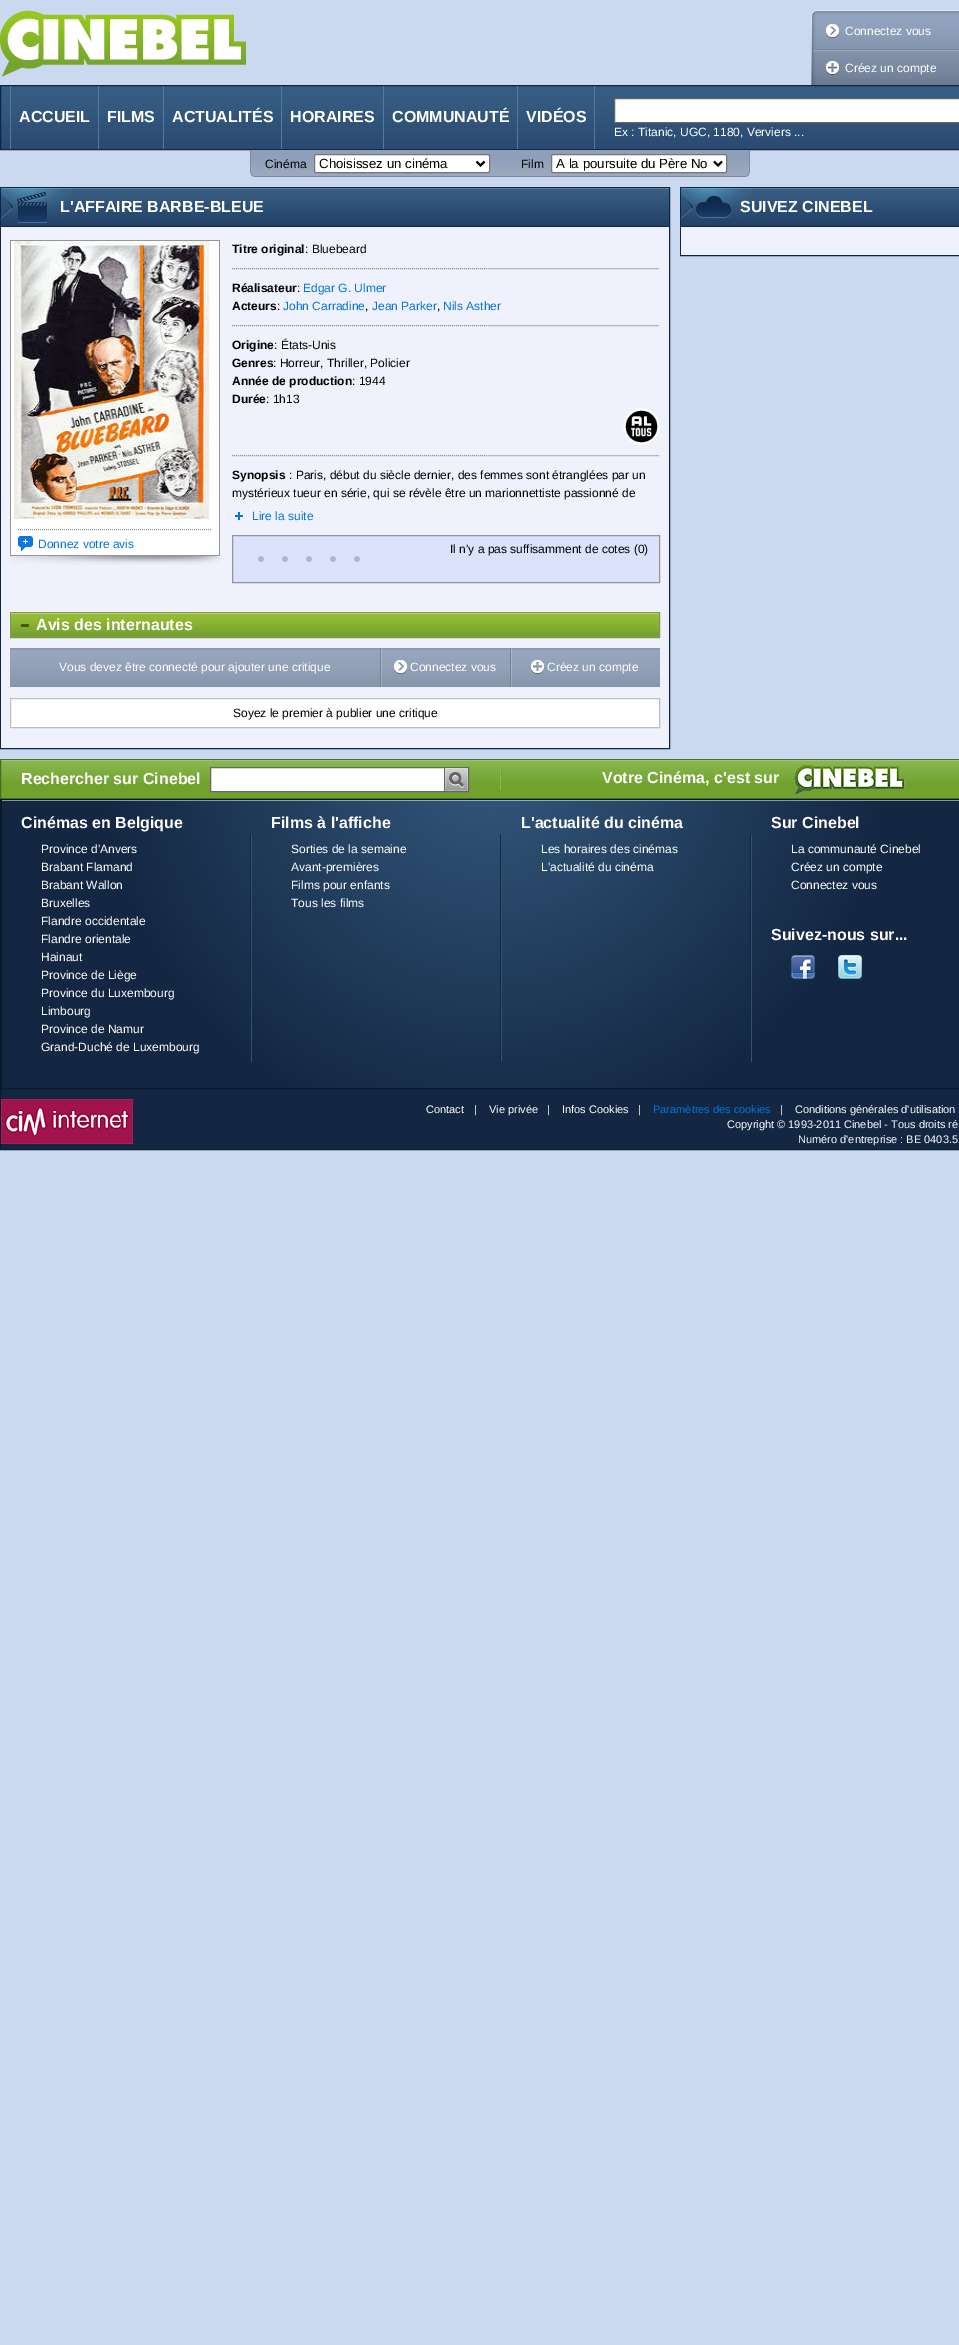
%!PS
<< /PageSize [959 2345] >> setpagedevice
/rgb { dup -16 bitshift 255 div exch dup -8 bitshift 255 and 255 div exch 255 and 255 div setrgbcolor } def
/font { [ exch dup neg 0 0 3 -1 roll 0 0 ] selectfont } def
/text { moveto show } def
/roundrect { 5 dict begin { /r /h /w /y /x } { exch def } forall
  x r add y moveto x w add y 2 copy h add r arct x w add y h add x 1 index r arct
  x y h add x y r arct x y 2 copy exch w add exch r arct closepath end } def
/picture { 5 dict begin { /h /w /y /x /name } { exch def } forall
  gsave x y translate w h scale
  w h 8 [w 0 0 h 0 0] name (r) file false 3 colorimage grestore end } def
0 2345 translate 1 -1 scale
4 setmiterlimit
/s1 { /LiberationSans-Regular 12 font 16#FFFFFF rgb } def
/s2 { /LiberationSans-Bold 16 font 16#FFFFFF rgb } def
/s3 { /LiberationSans-Regular 12 font 16#000000 rgb } def
/s4 { /LiberationSans-Regular 13.25 font 16#000000 rgb } def
/s5 { /LiberationSans-Regular 12 font 16#0374DD rgb } def
/s6 { /LiberationSans-Bold 12 font 16#000000 rgb } def
/s7 { /LiberationSans-Regular 11 font 16#FFFFFF rgb } def
/s8 { /LiberationSans-Regular 11 font 16#0374DD rgb } def
16#CAD9EF rgb
0 0 959 2345 rectfill
(pic1.raw) 0 10 246 67 picture
(pic2.raw) 811 10 148 75 picture
(pic3.raw) 826 24 13 14 picture
s1
(Connectez vous) 845 35 text
(pic4.raw) 826 61 13 14 picture
(Créez un compte) 845 72 text
(pic5.raw) 1 86 958 63 picture
16#102645 rgb
0.5 85.5 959 64 rectstroke
16#4F7BA0 rgb
98 86 1 63 rectfill
10 86 1 63 rectfill
s2
(ACCUEIL) 19 122 text
16#4F7BA0 rgb
163 86 1 63 rectfill
s2
(FILMS) 107 122 text
16#4F7BA0 rgb
281 86 1 63 rectfill
s2
(ACTUALITÉS) 172 122 text
16#4F7BA0 rgb
383 86 1 63 rectfill
s2
(HORAIRES) 290 122 text
16#4F7BA0 rgb
517 86 1 63 rectfill
s2
(COMMUNAUTÉ) 392 122 text
16#4F7BA0 rgb
594 86 1 63 rectfill
s2
(VIDÉOS) 526 122 text
614.5 98.5 moveto 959.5 98.5 lineto 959.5 122.5 lineto 614.5 122.5 lineto closepath gsave fill grestore
16#666666 rgb
stroke
s1
(Ex : Titanic, UGC, 1180, Verviers ...) 614 136 text
(pic6.raw) 250 150 250 27 picture
s3
(Cinéma) 265 168 text
16#FFFFFF rgb
314.5 154.5 175 18 1.5 roundrect gsave fill grestore
16#767676 rgb
stroke
16#000000 rgb
2 setlinewidth
476.5 161.5 moveto 480.5 165.5 lineto 484.5 161.5 lineto stroke
s4
(Choisissez un cinéma) 319 168 text
(pic7.raw) 500 150 250 27 picture
s3
(Film) 521 168 text
16#FFFFFF rgb
551.5 154.5 175 18 1.5 roundrect gsave fill grestore
16#767676 rgb
1 setlinewidth
stroke
16#000000 rgb
2 setlinewidth
714 161.5 moveto 718 165.5 lineto 722 161.5 lineto stroke
s4
(A la poursuite du Père No) 556 168 text
16#102645 rgb
1 setlinewidth
0.5 187.5 669 561 rectstroke
(pic8.raw) 1 188 668 38 picture
1 226 668 1 rectfill
(pic9.raw) 0 188 73 35 picture
s2
(L'AFFAIRE BARBE-BLEUE) 60 212 text
16#EFF2FD rgb
1 227 668 521 rectfill
(pic10.raw) 10 481 212 84 picture
16#FFFFFF rgb
11 241 208 240 rectfill
16#959595 rgb
10 240 210 1 rectfill
219 240 1 241 rectfill
10 240 1 315 rectfill
(pic11.raw) 14 241 195 278 picture
[1 1] 0 setdash
18 529.5 moveto 212 529.5 lineto stroke
(pic12.raw) 18 536 15 15 picture
s5
(Donnez votre avis) 38 548 text
16#959595 rgb
232 268.5 moveto 660 268.5 lineto stroke
s6
(Titre original) 232 253 text
s3
(: Bluebeard) 305 253 text
16#959595 rgb
232 325.5 moveto 660 325.5 lineto stroke
s6
(Réalisateur) 232 292 text
s3
(:) 297 292 text
s5
(Edgar G. Ulmer) 303 292 text
s6
(Acteurs) 232 310 text
s3
(:) 277 310 text
s5
(John Carradine) 283 310 text
s3
(,) 365 310 text
s5
(Jean Parker) 372 310 text
s3
(,) 437 310 text
s5
(Nils Asther) 443 310 text
16#959595 rgb
232 455.5 moveto 660 455.5 lineto stroke
s6
(Origine) 232 349 text
s3
(: États-Unis) 274 349 text
s6
(Genres) 232 367 text
s3
(: Horreur, Thriller, Policier) 273 367 text
s6
(Année de production) 232 385 text
s3
(: 1944) 352 385 text
s6
(Durée) 232 403 text
s3
(: 1h13) 266 403 text
(pic13.raw) 623 408 37 37 picture
s6
(Synopsis) 232 479 text
s3
(: Paris, début du siècle dernier, des femmes sont étranglées par un) 289 479 text
(mystérieux tueur en série, qui se révèle être un marionnettiste passionné de) 232 497 text
(pic14.raw) 235 508 8 12 picture
s5
(Lire la suite) 252 520 text
16#DBE2FC rgb
232.5 535.5 moveto 659.5 535.5 lineto 659.5 582.5 lineto 232.5 582.5 lineto closepath gsave fill grestore
16#959595 rgb
[] 0 setdash
stroke
s3
(Il n'y a pas suffisamment de cotes \(0\)) 450 553 text
(pic15.raw) 258 556 102 6 picture
16#80994D rgb
10.5 612.5 649 25 rectstroke
16#73A231 rgb
11 633 648 4 rectfill
(pic16.raw) 11 613 648 20 picture
16#465A17 rgb
21 624 8 3 rectfill
s2
(Avis des internautes) 36 630 text
(pic17.raw) 10 648 650 39 picture
s1
(Vous devez être connecté pour ajouter une critique) 59 671 text
(pic18.raw) 380 648 2 39 picture
(pic19.raw) 394 660 13 14 picture
(Connectez vous) 410 671 text
(pic18.raw) 510 648 2 39 picture
(pic20.raw) 531 660 13 14 picture
(Créez un compte) 547 671 text
10.5 698.5 moveto 659.5 698.5 lineto 659.5 727.5 lineto 10.5 727.5 lineto closepath gsave fill grestore
16#BCBEC1 rgb
stroke
s3
(Soyez le premier à publier une critique) 233 717 text
16#102645 rgb
680.5 187.5 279 68 rectstroke
(pic21.raw) 681 188 278 38 picture
681 226 278 1 rectfill
(pic22.raw) 680 188 73 32 picture
s2
(SUIVEZ CINEBEL) 740 212 text
16#EFF2FD rgb
681 227 278 28 rectfill
(pic23.raw) 1 760 958 38 picture
16#4A6A28 rgb
0.5 759.5 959 39 rectstroke
s2
(Rechercher sur Cinebel) 21 784 text
211 768 233 23 rectfill
16#666666 rgb
210.5 767.5 258 24 rectstroke
(pic24.raw) 444 768 24 23 picture
(pic25.raw) 500 769 2 21 picture
s2
(Votre Cinéma, c'est sur) 602 783 text
(pic26.raw) 794 764 111 31 picture
(pic27.raw) 1 800 958 288 picture
16#0B1A2C rgb
0 799 959 1 rectfill
0 799 1 289 rectfill
s2
(Cinémas en Belgique) 21 828 text
s1
(Province d'Anvers) 41 853 text
(Brabant Flamand) 41 871 text
(Brabant Wallon) 41 889 text
(Bruxelles) 41 907 text
(Flandre occidentale) 41 925 text
(Flandre orientale) 41 943 text
(Hainaut) 41 961 text
(Province de Liège) 41 979 text
(Province du Luxembourg) 41 997 text
(Limbourg) 41 1015 text
(Province de Namur) 41 1033 text
(Grand-Duché de Luxembourg) 41 1051 text
s2
(Films à l'affiche) 271 828 text
s1
(Sorties de la semaine) 291 853 text
(Avant-premières) 291 871 text
(Films pour enfants) 291 889 text
(Tous les films) 291 907 text
s2
(L'actualité du cinéma) 521 828 text
s1
(Les horaires des cinémas) 541 853 text
(L'actualité du cinéma) 541 871 text
s2
(Sur Cinebel) 771 828 text
s1
(La communauté Cinebel) 791 853 text
(Créez un compte) 791 871 text
(Connectez vous) 791 889 text
s2
(Suivez-nous sur...) 771 940 text
(pic28.raw) 791 955 24 24 picture
(pic29.raw) 838 955 24 24 picture
16#132743 rgb
0.5 1088.5 moveto 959.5 1088.5 lineto 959.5 1149.5 lineto 0.5 1149.5 lineto closepath gsave fill grestore
16#0B1A2C rgb
stroke
(pic30.raw) 1 1099 132 45 picture
s7
(Contact) 426 1113 text
(|) 474 1113 text
(Vie privée) 489 1113 text
(|) 547 1113 text
(Infos Cookies) 562 1113 text
(|) 638 1113 text
s8
(Paramètres des cookies) 653 1113 text
s7
(|) 780 1113 text
(Conditions générales d'utilisation) 795 1113 text
(Copyright © 1993-2011 Cinebel - Tous droits ré) 727 1128 text
(Numéro d'entreprise : BE 0403.5) 798 1143 text
showpage
